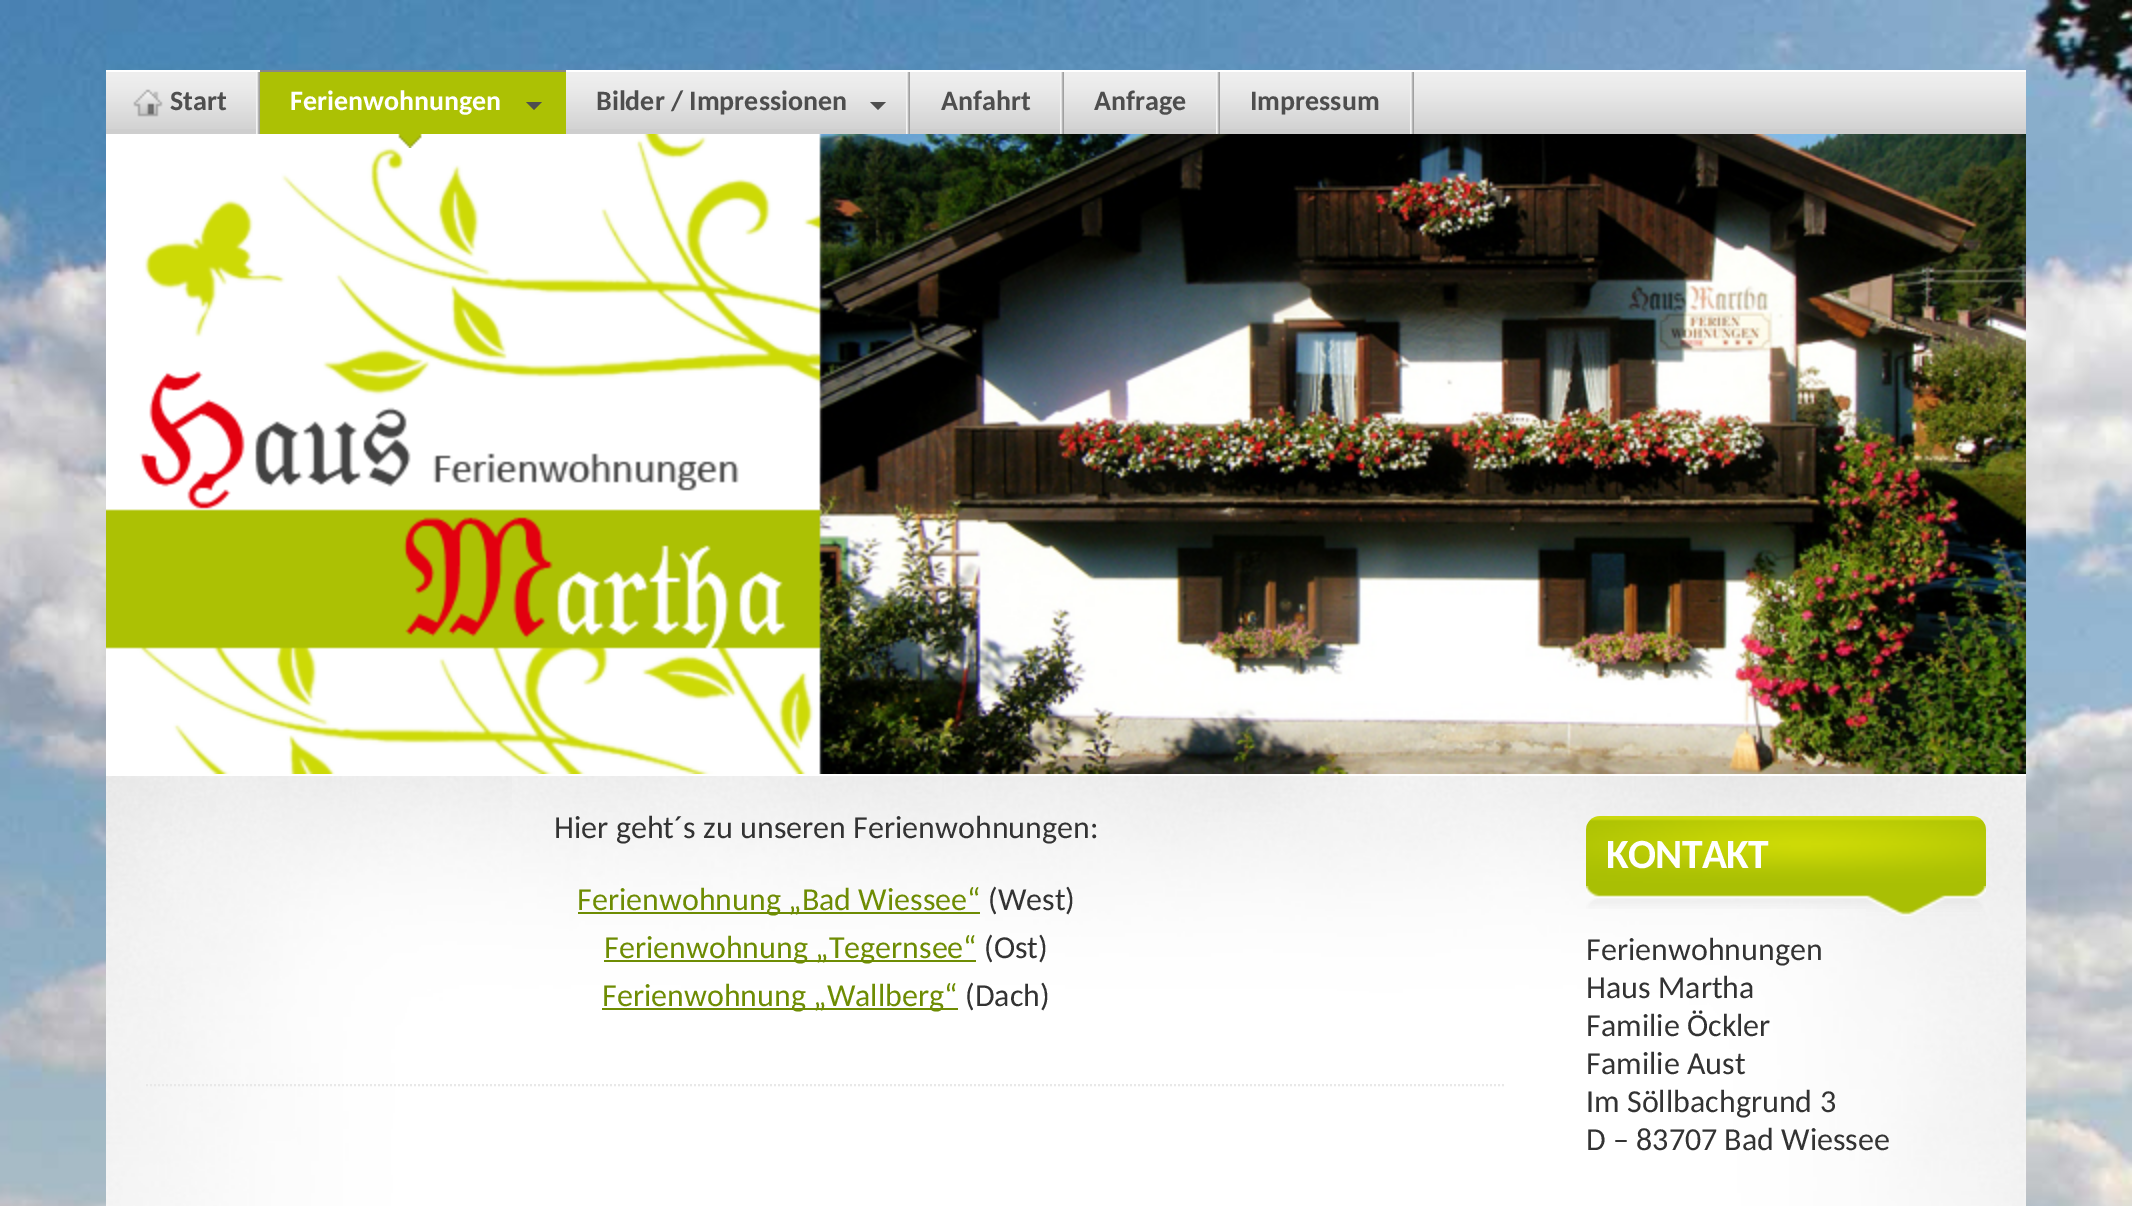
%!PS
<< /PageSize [2132 1206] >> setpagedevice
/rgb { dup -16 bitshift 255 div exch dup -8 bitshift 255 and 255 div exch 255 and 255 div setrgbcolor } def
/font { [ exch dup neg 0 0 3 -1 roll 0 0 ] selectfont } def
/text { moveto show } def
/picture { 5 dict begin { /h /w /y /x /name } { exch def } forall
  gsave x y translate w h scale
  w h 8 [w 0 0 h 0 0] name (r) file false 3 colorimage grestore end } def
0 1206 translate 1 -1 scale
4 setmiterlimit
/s1 { /Carlito-Bold 28 font 16#4E4E4E rgb } def
/s2 { /Carlito-Bold 28 font 16#FFFFFF rgb } def
/s3 { /Carlito-Regular 32 font 16#333333 rgb } def
/s4 { /Carlito-Regular 32 font 16#6E8C03 rgb } def
16#FFFFFF rgb
0 0 2132 1206 rectfill
(pic1.raw) 0 0 2132 1206 picture
16#CECECE rgb
106 129 1920 5 rectfill
(pic2.raw) 106 72 1920 57 picture
16#FFFFFF rgb
1414 70 612 2 rectfill
(pic3.raw) 256 72 4 62 picture
106 70 154 2 rectfill
(pic4.raw) 133 89 30 28 picture
s1
(Start) 170 110 text
16#ACC104 rgb
260 72 306 62 rectfill
16#888888 rgb
260 70 306 2 rectfill
s2
(Ferienwohnungen) 290 110 text
16#4E4E4E rgb
526 102 moveto 542 102 lineto 534 110 lineto closepath fill
(pic6.raw) 106 134 1920 640 picture
(pic5.raw) 398 134 24 14 picture
(pic3.raw) 906 72 4 62 picture
16#FFFFFF rgb
566 70 848 2 rectfill
s1
(Bilder / Impressionen) 596 110 text
870 102 moveto 886 102 lineto 878 110 lineto closepath fill
(pic3.raw) 1060 72 4 62 picture
(Anfahrt) 941 110 text
(pic3.raw) 1216 72 4 62 picture
(Anfrage) 1094 110 text
(pic3.raw) 1410 72 4 62 picture
(Impressum) 1250 110 text
16#FFFFFF rgb
106 774 1920 2 rectfill
(pic7.raw) 512 776 1514 430 picture
(pic8.raw) 106 776 406 430 picture
16#E8E8E8 rgb
2 setlinewidth
[2 2] 0 setdash
146 1085 moveto 1506 1085 lineto stroke
s3
(Hier geht´s zu unseren Ferienwohnungen:) 554 838 text
16#6E8C03 rgb
578 912 402 2 rectfill
(Ferienwohnung „Bad Wiessee“) 577 910 text
s3
(\(West\)) 988 910 text
16#6E8C03 rgb
604 960 372 2 rectfill
(Ferienwohnung „Tegernsee“) 604 958 text
s3
(\(Ost\)) 984 958 text
16#6E8C03 rgb
602 1008 356 2 rectfill
(Ferienwohnung „Wallberg“) 602 1006 text
s3
(\(Dach\)) 965 1006 text
(pic9.raw) 1586 816 400 70 picture
/Carlito-Bold 41.5 font
16#FFFFFF rgb
1606 868 moveto -0.75 0 (KONTAKT) ashow
(pic10.raw) 1586 886 280 23 picture
(pic11.raw) 1866 886 120 30 picture
s3
(Ferienwohnungen) 1586 960 text
(Haus Martha) 1586 998 text
(Familie Öckler) 1586 1036 text
(Familie Aust) 1586 1074 text
(Im Söllbachgrund 3) 1586 1112 text
(D – 83707 Bad Wiessee) 1586 1150 text
showpage
